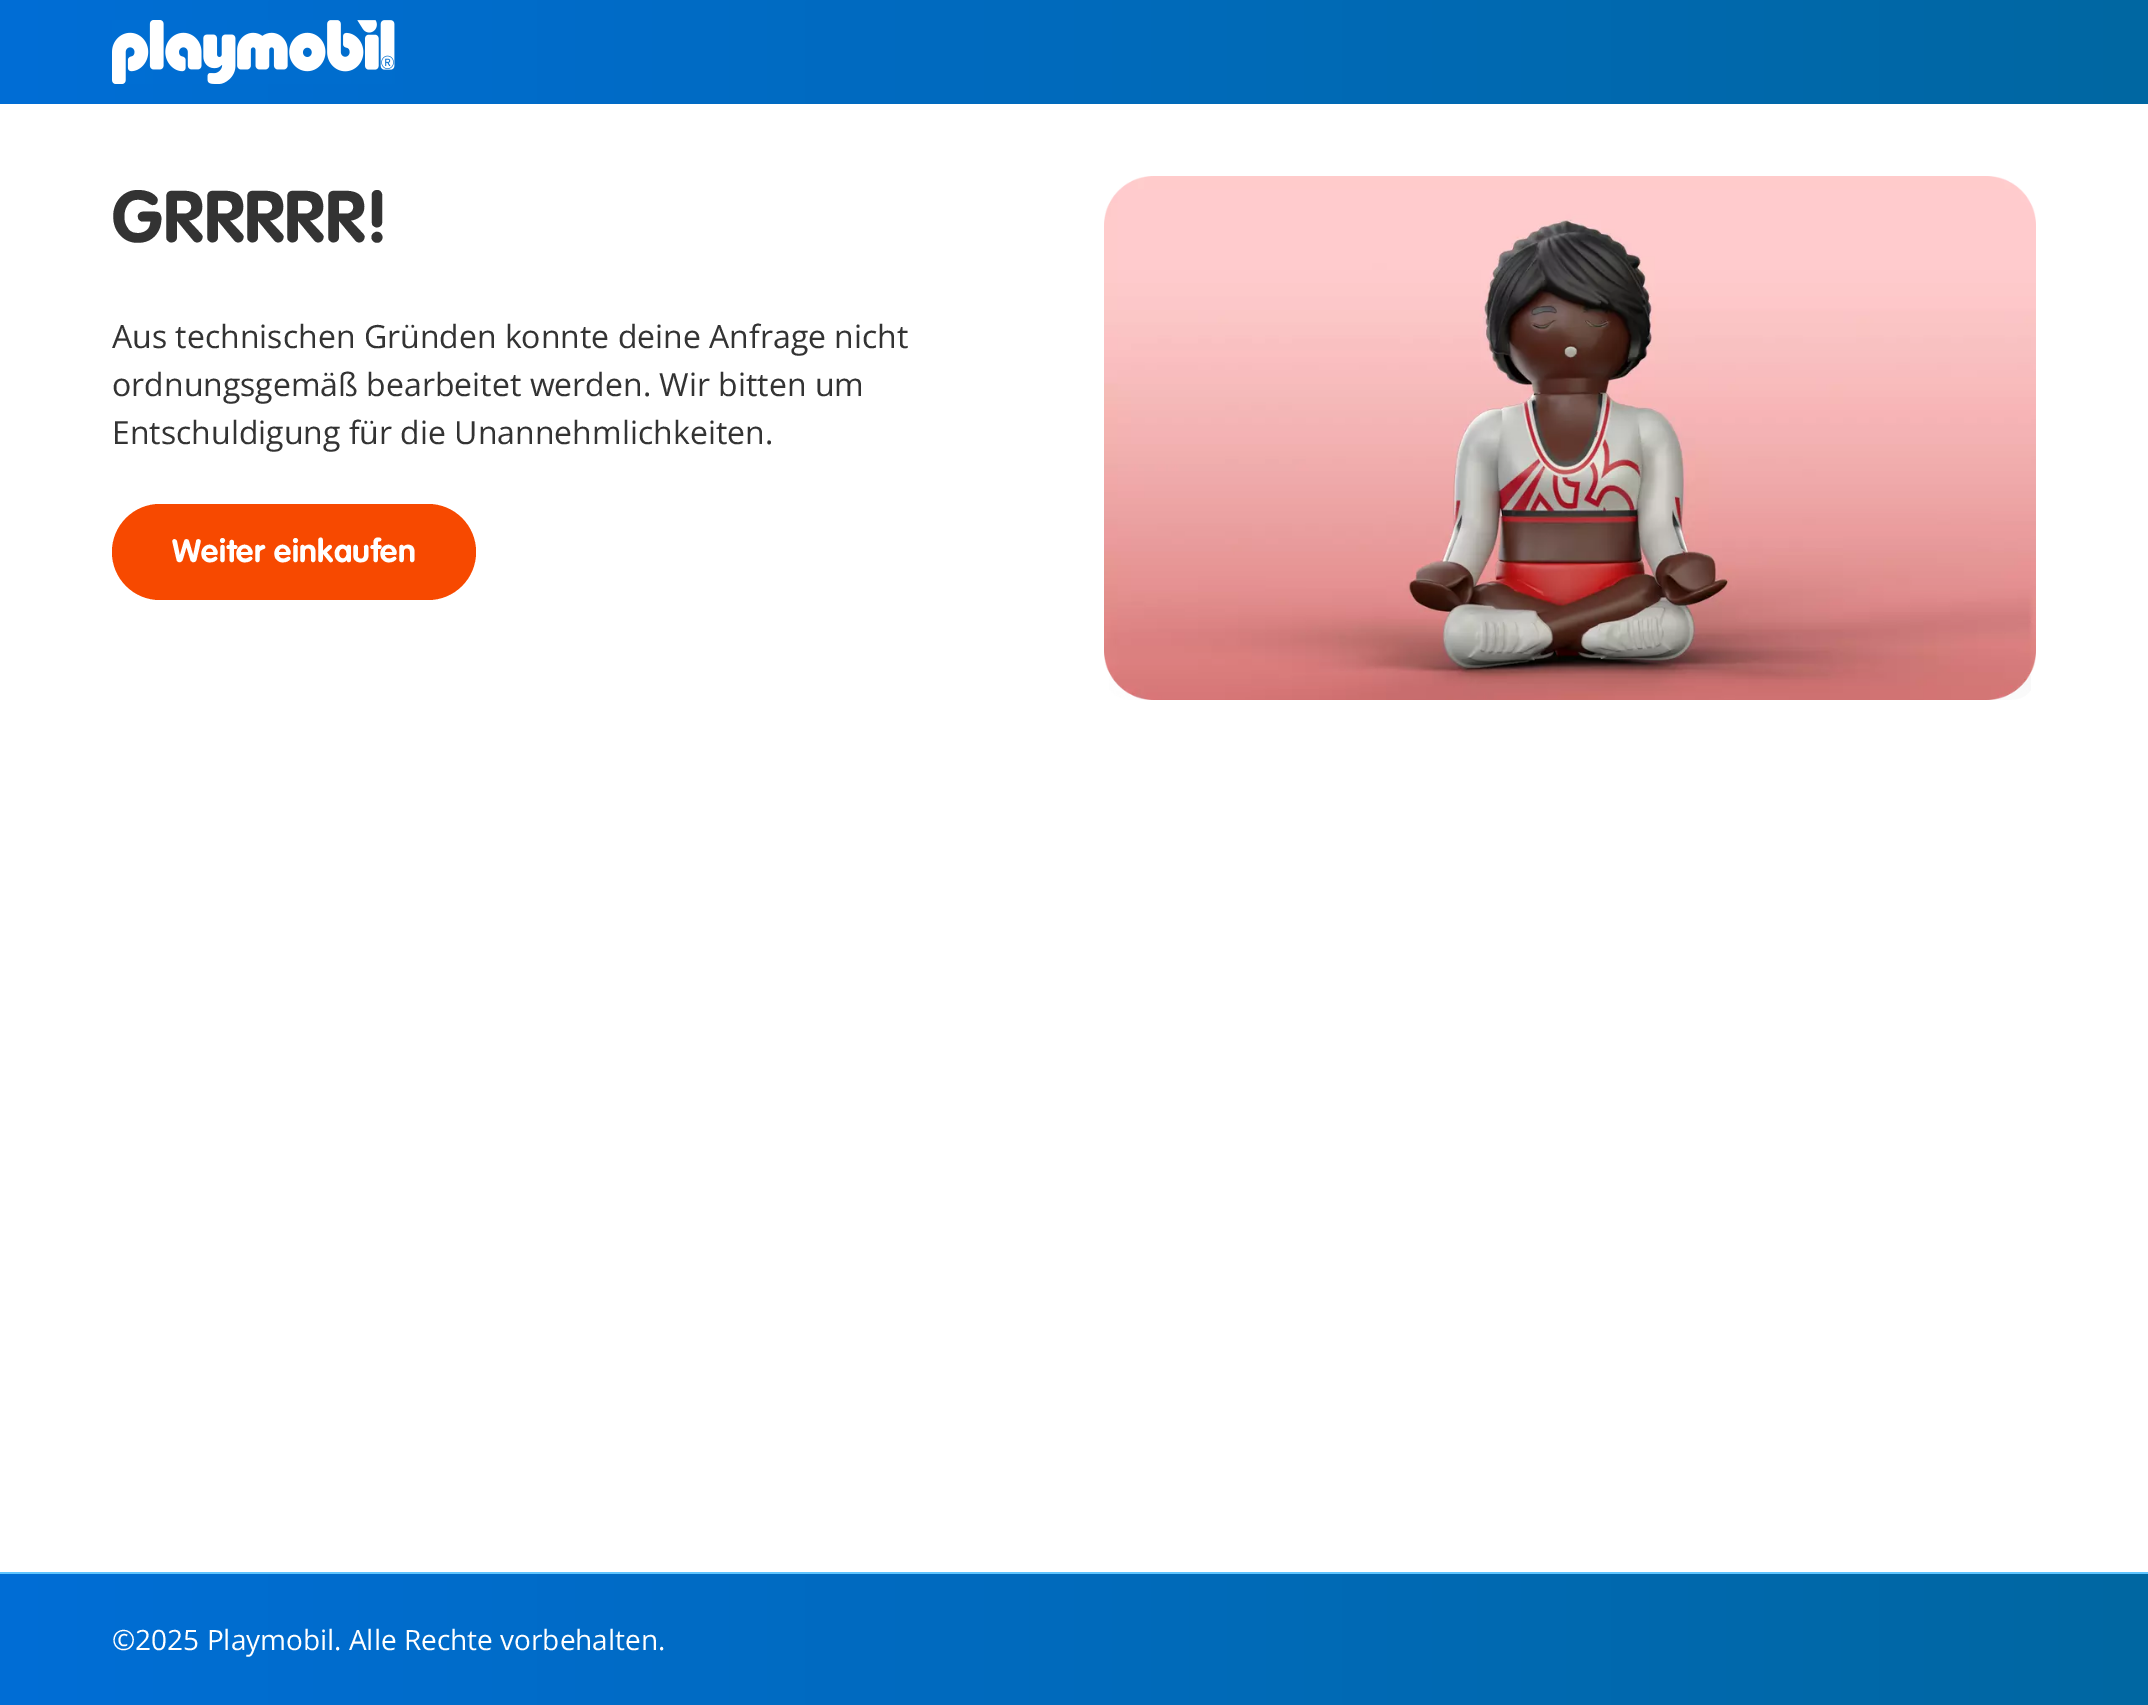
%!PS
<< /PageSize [2148 1705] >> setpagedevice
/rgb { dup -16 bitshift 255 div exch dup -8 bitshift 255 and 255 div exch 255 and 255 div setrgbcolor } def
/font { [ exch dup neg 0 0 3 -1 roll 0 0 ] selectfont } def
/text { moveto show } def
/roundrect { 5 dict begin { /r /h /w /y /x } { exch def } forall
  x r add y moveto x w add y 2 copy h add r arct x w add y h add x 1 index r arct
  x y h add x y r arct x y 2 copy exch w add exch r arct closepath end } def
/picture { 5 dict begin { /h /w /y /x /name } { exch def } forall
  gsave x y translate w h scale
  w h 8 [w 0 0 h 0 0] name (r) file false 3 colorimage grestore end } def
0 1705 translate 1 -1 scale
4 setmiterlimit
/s1 { /OpenSans-Regular 32 font 16#333333 rgb } def
/s2 { /OpenSans-Regular 28 font 16#FFFFFF rgb } def
16#FFFFFF rgb
0 0 2148 1705 rectfill
gsave 0 0 moveto 2148 0 lineto 2148 104 lineto 0 104 lineto closepath clip newpath
<< /ShadingType 2 /ColorSpace /DeviceRGB /Coords [2148 52 0 52] /Extend [true true] /Function << /FunctionType 2 /Domain [0 1] /C0 [0 0.404 0.635] /C1 [0 0.431 0.839] /N 1 >> >> shfill grestore
(pic1.raw) 112 20 283 64 picture
/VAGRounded-Regular 72 font
16#333333 rgb
112 242 moveto 0.4 0 (GRRRRR!) ashow
s1
(Aus technischen Gründen konnte deine Anfrage nicht) 112 348 text
(ordnungsgemäß bearbeitet werden. Wir bitten um) 112 396 text
(Entschuldigung für die Unannehmlichkeiten.) 112 444 text
16#F74900 rgb
112 504 364 96 48 roundrect fill
/VAGRounded-Regular 32 font
16#FFFFFF rgb
172 562 moveto 0.4 0 (Weiter einkaufen) ashow
(pic2.raw) 1104 176 932 524 picture
gsave 0 1574 moveto 2148 1574 lineto 2148 1705 lineto 0 1705 lineto closepath clip newpath
<< /ShadingType 2 /ColorSpace /DeviceRGB /Coords [2148 1640 0 1640] /Extend [true true] /Function << /FunctionType 2 /Domain [0 1] /C0 [0 0.404 0.635] /C1 [0 0.431 0.839] /N 1 >> >> shfill grestore
16#5FC5FF rgb
0 1572 2148 2 rectfill
s2
(©2025 Playmobil. Alle Rechte vorbehalten.) 112 1650 text
showpage
